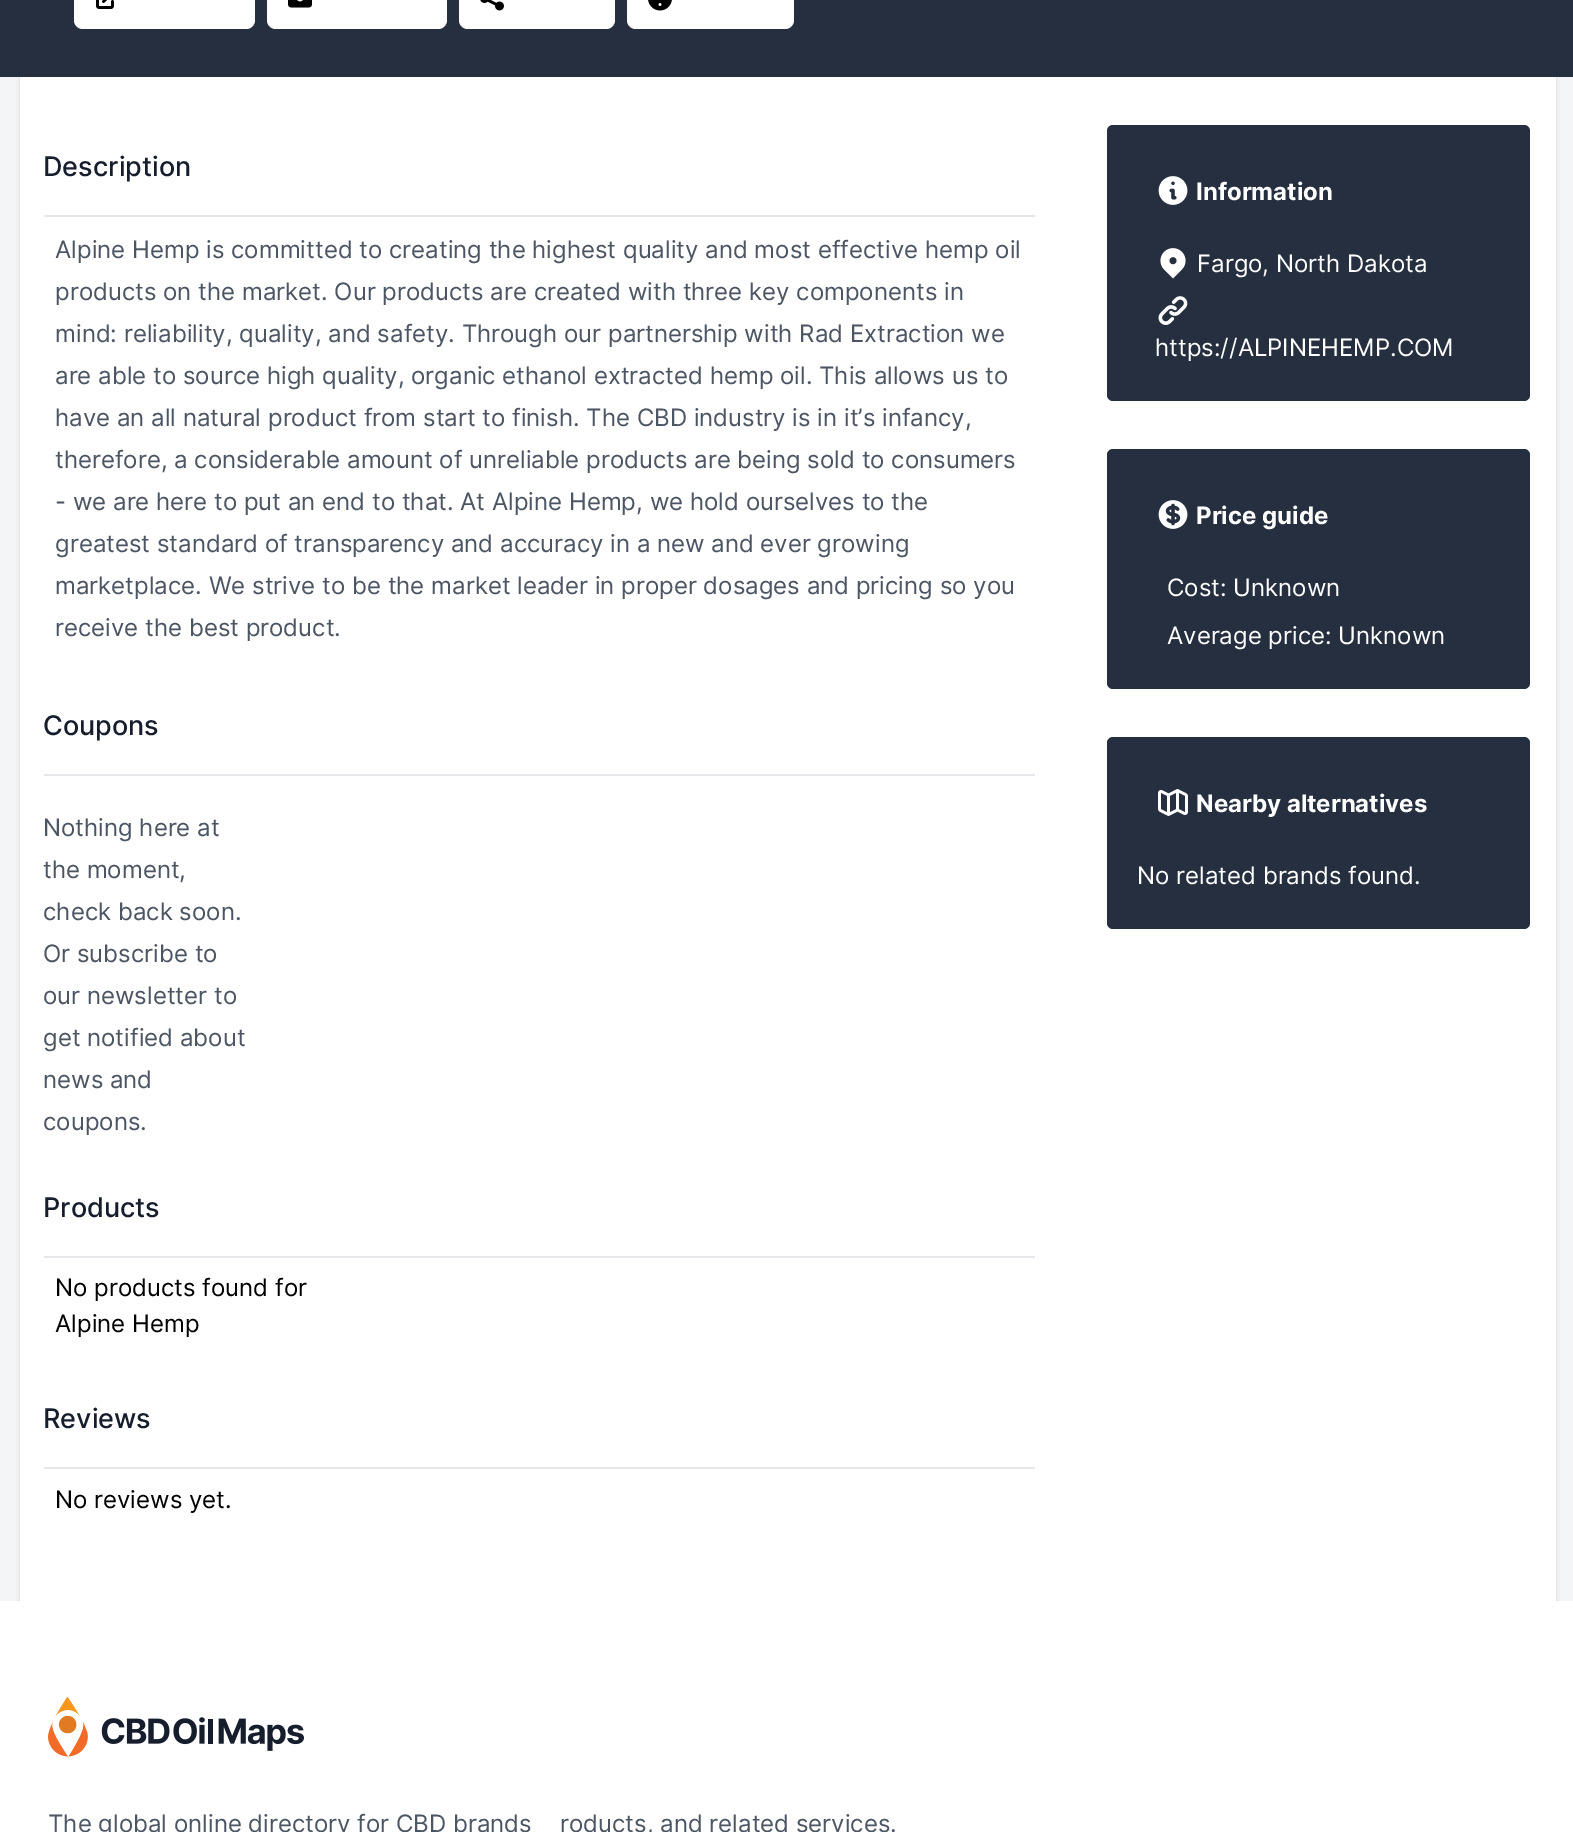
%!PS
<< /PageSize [1573 1832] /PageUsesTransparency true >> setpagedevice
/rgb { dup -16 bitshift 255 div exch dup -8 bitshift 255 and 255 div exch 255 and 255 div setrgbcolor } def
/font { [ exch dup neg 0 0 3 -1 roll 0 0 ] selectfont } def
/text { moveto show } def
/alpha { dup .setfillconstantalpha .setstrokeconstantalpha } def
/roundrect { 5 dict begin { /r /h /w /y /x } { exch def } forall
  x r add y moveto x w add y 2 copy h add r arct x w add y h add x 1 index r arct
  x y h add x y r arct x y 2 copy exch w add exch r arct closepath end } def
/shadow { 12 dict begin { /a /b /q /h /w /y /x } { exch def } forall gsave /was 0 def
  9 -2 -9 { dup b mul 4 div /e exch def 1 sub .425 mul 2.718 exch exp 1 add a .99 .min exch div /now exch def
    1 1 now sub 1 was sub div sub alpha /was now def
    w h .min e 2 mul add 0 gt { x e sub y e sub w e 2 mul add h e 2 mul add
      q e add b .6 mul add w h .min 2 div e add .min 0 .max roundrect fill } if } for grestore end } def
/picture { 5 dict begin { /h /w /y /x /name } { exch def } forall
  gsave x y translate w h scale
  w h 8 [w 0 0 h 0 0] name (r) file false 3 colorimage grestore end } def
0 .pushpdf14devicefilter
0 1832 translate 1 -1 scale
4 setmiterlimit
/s1 { /Inter-Medium 27 font 16#161E2E rgb } def
/s2 { /Inter-Regular 24 font 16#4B5563 rgb } def
/s3 { /Inter-Regular 24 font 16#000000 rgb } def
/s4 { /Inter-Bold 24 font 16#FFFFFF rgb } def
/s5 { /Inter-Regular 24 font 16#FFFFFF rgb } def
16#F4F5F7 rgb
0 0 1573 1832 rectfill
16#252F3F rgb
0 0 1573 77 rectfill
16#FFFFFF rgb
74 -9 181 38 9 roundrect fill
(pic1.raw) 96 0 18 9 picture
267 -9 180 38 9 roundrect fill
(pic2.raw) 288 0 24 8 picture
459 -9 156 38 9 roundrect fill
(pic3.raw) 480 0 24 11 picture
627 -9 167 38 9 roundrect fill
(pic4.raw) 648 0 24 11 picture
16#000000 rgb
20 78 1536 1524 0 1.5 0.06 shadow
20 78 1536 1524 0 2 0.1 shadow
16#FFFFFF rgb
20 77 1536 1524 rectfill
16#E5E7EB rgb
44 215 991 2 rectfill
s1
(Description) 43 176 text
s2
(Alpine Hemp is committed to creating the highest quality and most effective hemp oil) 55 258 text
(products on the market. Our products are created with three key components in) 55 300 text
(mind: reliability, quality, and safety. Through our partnership with Rad Extraction we) 55 342 text
(are able to source high quality, organic ethanol extracted hemp oil. This allows us to) 55 384 text
(have an all natural product from start to finish. The CBD industry is in it’s infancy,) 55 426 text
(therefore, a considerable amount of unreliable products are being sold to consumers) 55 468 text
(- we are here to put an end to that. At Alpine Hemp, we hold ourselves to the) 55 510 text
(greatest standard of transparency and accuracy in a new and ever growing) 55 552 text
(marketplace. We strive to be the market leader in proper dosages and pricing so you) 55 594 text
(receive the best product.) 55 636 text
16#E5E7EB rgb
44 774 991 2 rectfill
s1
(Coupons) 43 735 text
s2
(Nothing here at) 43 836 text
(the moment,) 43 878 text
(check back soon.) 43 920 text
(Or subscribe to) 43 962 text
(our newsletter to) 43 1004 text
(get notified about) 43 1046 text
(news and) 43 1088 text
(coupons.) 43 1130 text
16#E5E7EB rgb
44 1256 991 2 rectfill
s1
(Products) 43 1217 text
s3
(No products found for) 55 1296 text
(Alpine Hemp) 55 1332 text
16#E5E7EB rgb
44 1467 991 2 rectfill
s1
(Reviews) 43 1428 text
s3
(No reviews yet.) 55 1508 text
16#252F3F rgb
1107 125 423 276 6 roundrect fill
(pic5.raw) 1158 176 30 29 picture
s4
(Information) 1196 200 text
(pic6.raw) 1160 248 26 31 picture
s5
(Fargo, North Dakota) 1197 272 text
(pic7.raw) 1158 296 30 29 picture
(https://ALPINEHEMP.COM) 1155 356 text
16#252F3F rgb
1107 449 423 240 6 roundrect fill
(pic8.raw) 1158 500 30 29 picture
s4
(Price guide) 1196 524 text
s5
(Cost: Unknown) 1167 596 text
(Average price: Unknown) 1167 644 text
16#252F3F rgb
1107 737 423 192 6 roundrect fill
(pic9.raw) 1158 789 30 27 picture
s4
(Nearby alternatives) 1196 812 text
s5
(No related brands found.) 1137 884 text
0 1601 1573 231 rectfill
(pic10.raw) 48 1697 256 60 picture
s2
(The global online directory for CBD brands) 48 1832 text
(roducts, and related services.) 560 1832 text
.poppdf14devicefilter showpage
